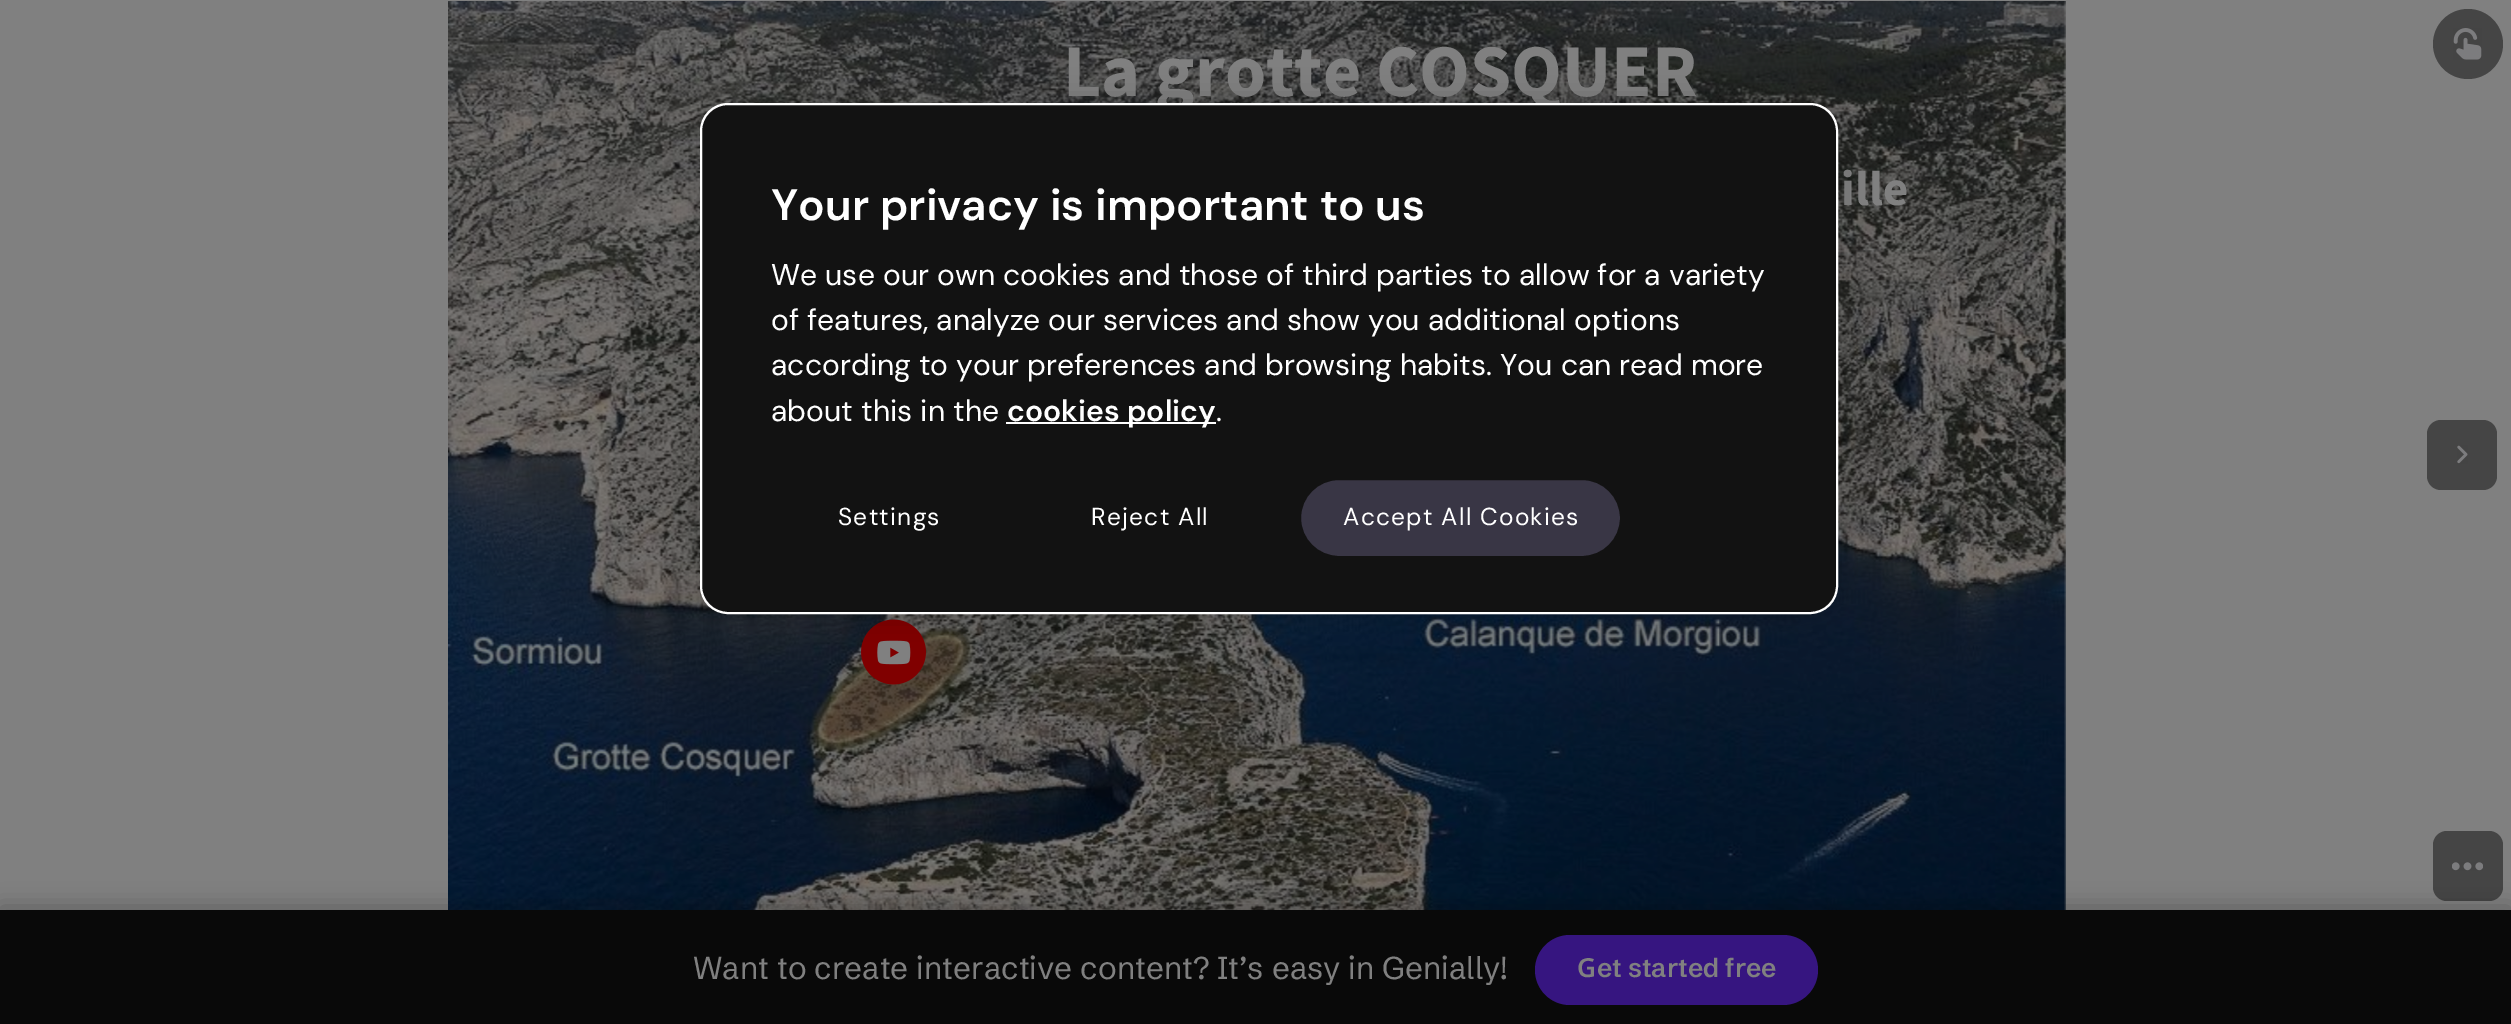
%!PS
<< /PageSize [2511 1024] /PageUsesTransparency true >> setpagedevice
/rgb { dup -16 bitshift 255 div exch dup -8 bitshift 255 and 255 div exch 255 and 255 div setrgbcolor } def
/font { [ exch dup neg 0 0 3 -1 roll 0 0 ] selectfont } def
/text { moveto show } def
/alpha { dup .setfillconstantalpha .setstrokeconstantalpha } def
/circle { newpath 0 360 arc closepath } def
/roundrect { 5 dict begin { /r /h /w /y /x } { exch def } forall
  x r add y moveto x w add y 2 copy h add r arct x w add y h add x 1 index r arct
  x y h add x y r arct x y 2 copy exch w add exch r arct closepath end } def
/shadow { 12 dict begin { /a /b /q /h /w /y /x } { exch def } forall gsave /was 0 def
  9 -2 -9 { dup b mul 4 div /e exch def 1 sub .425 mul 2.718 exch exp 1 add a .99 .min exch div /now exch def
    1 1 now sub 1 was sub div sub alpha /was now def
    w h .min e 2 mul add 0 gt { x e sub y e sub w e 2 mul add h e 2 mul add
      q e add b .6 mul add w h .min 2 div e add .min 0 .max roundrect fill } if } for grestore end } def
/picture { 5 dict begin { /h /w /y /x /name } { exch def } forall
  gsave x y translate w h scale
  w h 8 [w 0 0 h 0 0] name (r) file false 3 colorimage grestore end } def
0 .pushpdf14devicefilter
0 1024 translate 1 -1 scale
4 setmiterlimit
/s1 { /SourceSansPro-Bold 74.25 font 16#808080 rgb } def
/s2 { /SourceSansPro-Bold 49 font 16#808080 rgb } def
/s3 { /SchibstedGrotesk-Regular 31.5 font 16#808080 rgb } def
/s4 { /NotoSans-SemiBold 26.25 font 16#808080 rgb } def
/s5 { /SchibstedGrotesk-SemiBold 26.25 font 16#808080 rgb } def
/s6 { /DMSans-SemiBold 44.1 font 16#FFFFFF rgb } def
/s7 { /DMSans-Regular 30.1 font 16#FFFFFF rgb } def
/s8 { /DMSans-SemiBold 30.1 font 16#FFFFFF rgb } def
16#808080 rgb
0 0 2511 1024 rectfill
(pic1.raw) 448 1 1618 909 picture
s1
(La grotte COSQUER) 1063 96 text
s2
(ille) 1841 205 text
(pic2.raw) 861 619 65 66 picture
16#454545 rgb
2468 44 35 circle fill
(pic3.raw) 2453 28 29 32 picture
2427 420 70 70 14 roundrect fill
(pic4.raw) 2457 445 11 19 picture
2433 831 70 70 14 roundrect fill
(pic5.raw) 2452 862 31 9 picture
16#090909 rgb
0 907 2511 117 0 11.5 0.3 shadow
0 910 2511 114 rectfill
s3
(Want to create interactive content? It’s easy in Genially!) 693 979 text
16#361580 rgb
1535 935 283 70 35 roundrect fill
s4
(G) 1577 977 text
s5
(et started free) 1597 977 text
16#000000 rgb
700 103 1138 511 28 16 0.2 shadow
16#121212 rgb
701 104 1136 509 27 roundrect gsave fill grestore
16#FFFFFF rgb
2 setlinewidth
stroke
s6
(Your privacy is important to us) 771 220 text
s7
(We use our own cookies and those of third parties to allow for a variety) 771 285 text
(of features, analyze our services and show you additional options) 771 330 text
(according to your preferences and browsing habits. You can read more) 771 375 text
(about this in the) 771 421 text
1006 422 210 2 rectfill
s8
(cookies policy) 1007 421 text
s7
(.) 1216 421 text
/DMSans-Regular 24.5 font
838 525 moveto 1.25 0 (Settings) ashow
1091 525 moveto 1.25 0 (Reject All) ashow
16#393645 rgb
1300 479 321 78 39 roundrect gsave fill grestore
16#121212 rgb
stroke
16#FFFFFF rgb
1343 525 moveto 1.25 0 (Accept All Cookies) ashow
.poppdf14devicefilter showpage
